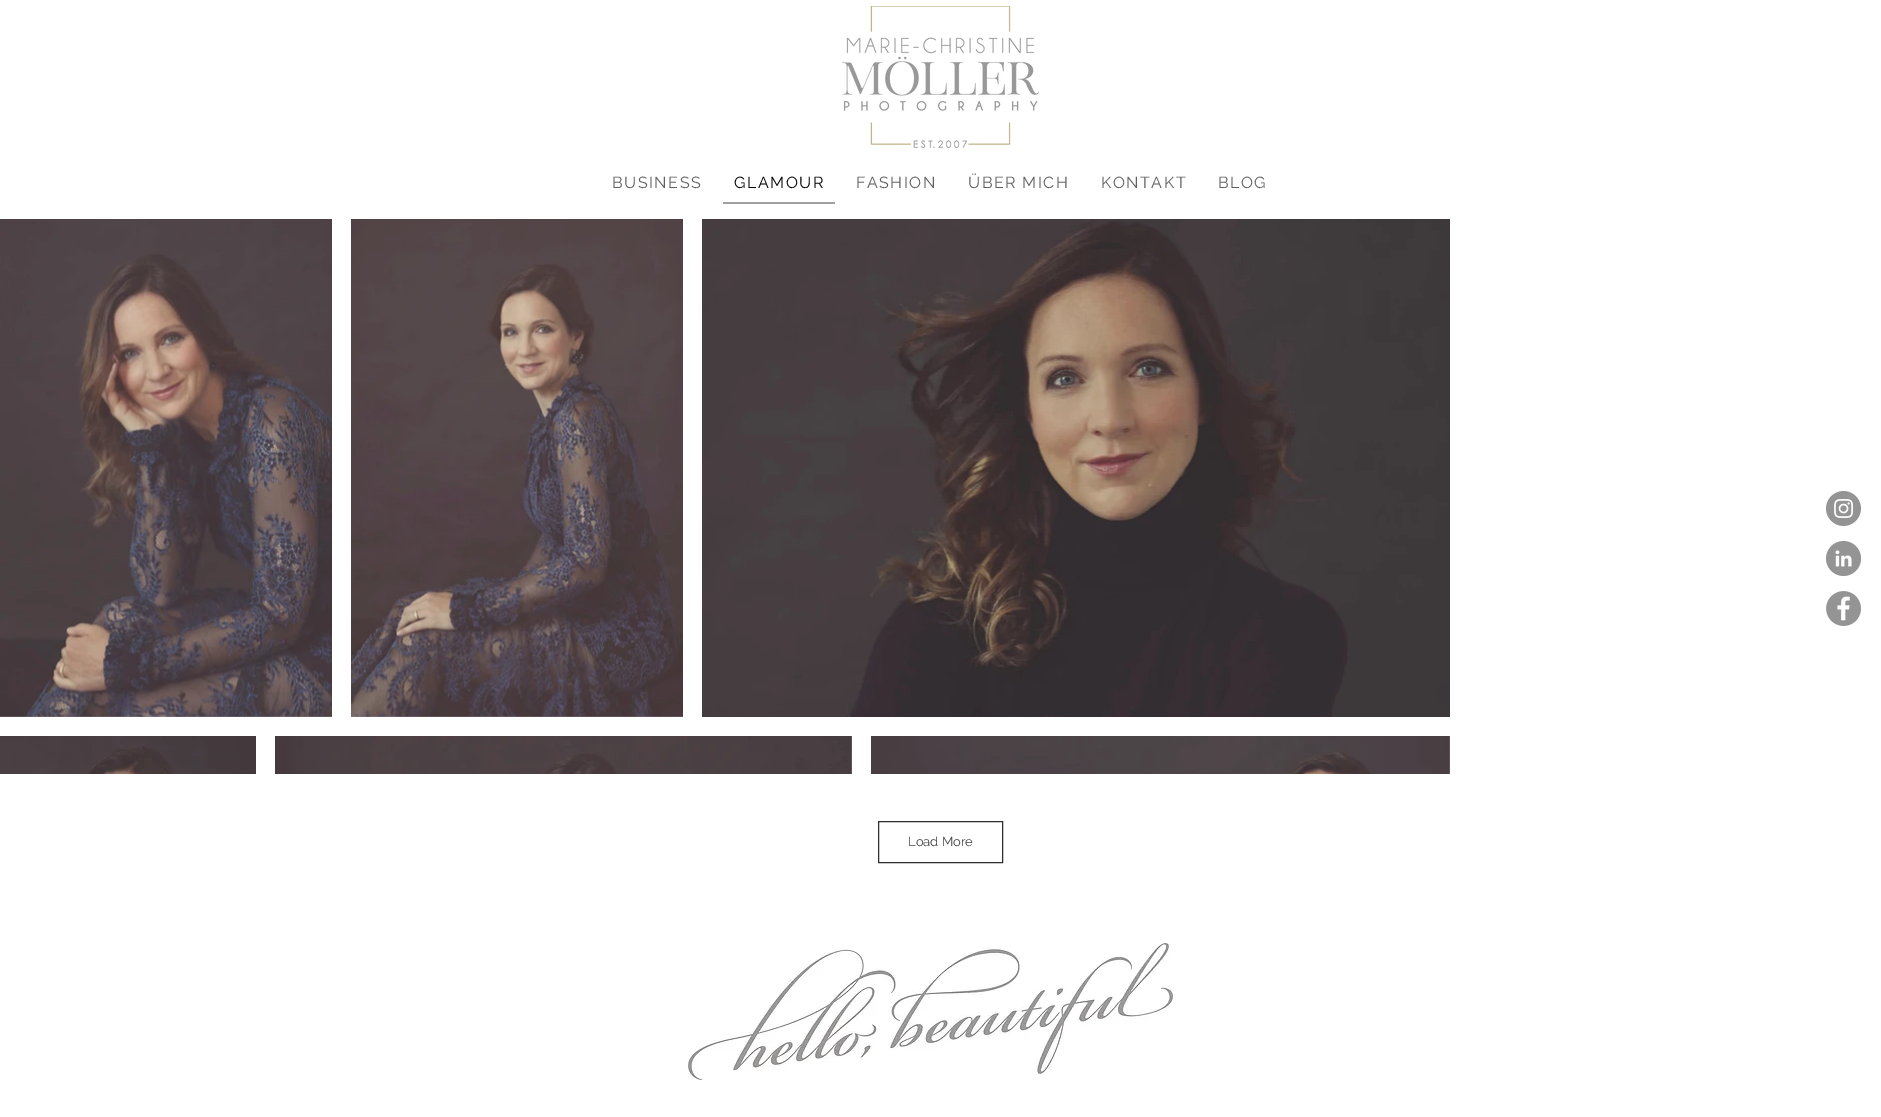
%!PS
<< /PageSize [1881 1117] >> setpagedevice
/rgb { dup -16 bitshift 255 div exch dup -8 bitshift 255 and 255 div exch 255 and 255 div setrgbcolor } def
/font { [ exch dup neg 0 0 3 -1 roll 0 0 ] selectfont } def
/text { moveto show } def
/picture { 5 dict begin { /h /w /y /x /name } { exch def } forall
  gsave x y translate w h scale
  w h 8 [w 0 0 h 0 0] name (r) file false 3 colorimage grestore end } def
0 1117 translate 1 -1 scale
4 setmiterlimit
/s1 { /Raleway-Regular 13 font 16#444343 rgb } def
16#FFFFFF rgb
0 0 1881 1117 rectfill
(pic1.raw) 842 6 197 142 picture
/Raleway-Regular 16 font
16#605E5E rgb
612 188 moveto 1.5 0 (BUSINESS) ashow
16#A0A09F rgb
723 202 112 2 rectfill
16#000000 rgb
734 188 moveto 1.5 0 (GLAMOUR) ashow
16#605E5E rgb
856 188 moveto 1.5 0 (FASHION) ashow
968 188 moveto 1.5 0 (ÜBER MICH) ashow
1101 188 moveto 1.5 0 (KONTAKT) ashow
1218 188 moveto 1.5 0 (BLOG) ashow
(pic2.raw) 1826 491 35 35 picture
(pic3.raw) 1826 541 35 35 picture
(pic4.raw) 1826 591 35 35 picture
(pic5.raw) 0 219 332 498 picture
(pic6.raw) 351 219 332 498 picture
(pic7.raw) 702 219 748 498 picture
(pic8.raw) 0 736 256 38 picture
(pic9.raw) 275 736 577 38 picture
(pic10.raw) 871 736 579 38 picture
16#2F2E2E rgb
878.5 821.5 124 41 rectstroke
s1
(Load More) 908 846 text
(pic11.raw) 688 943 485 137 picture
showpage
